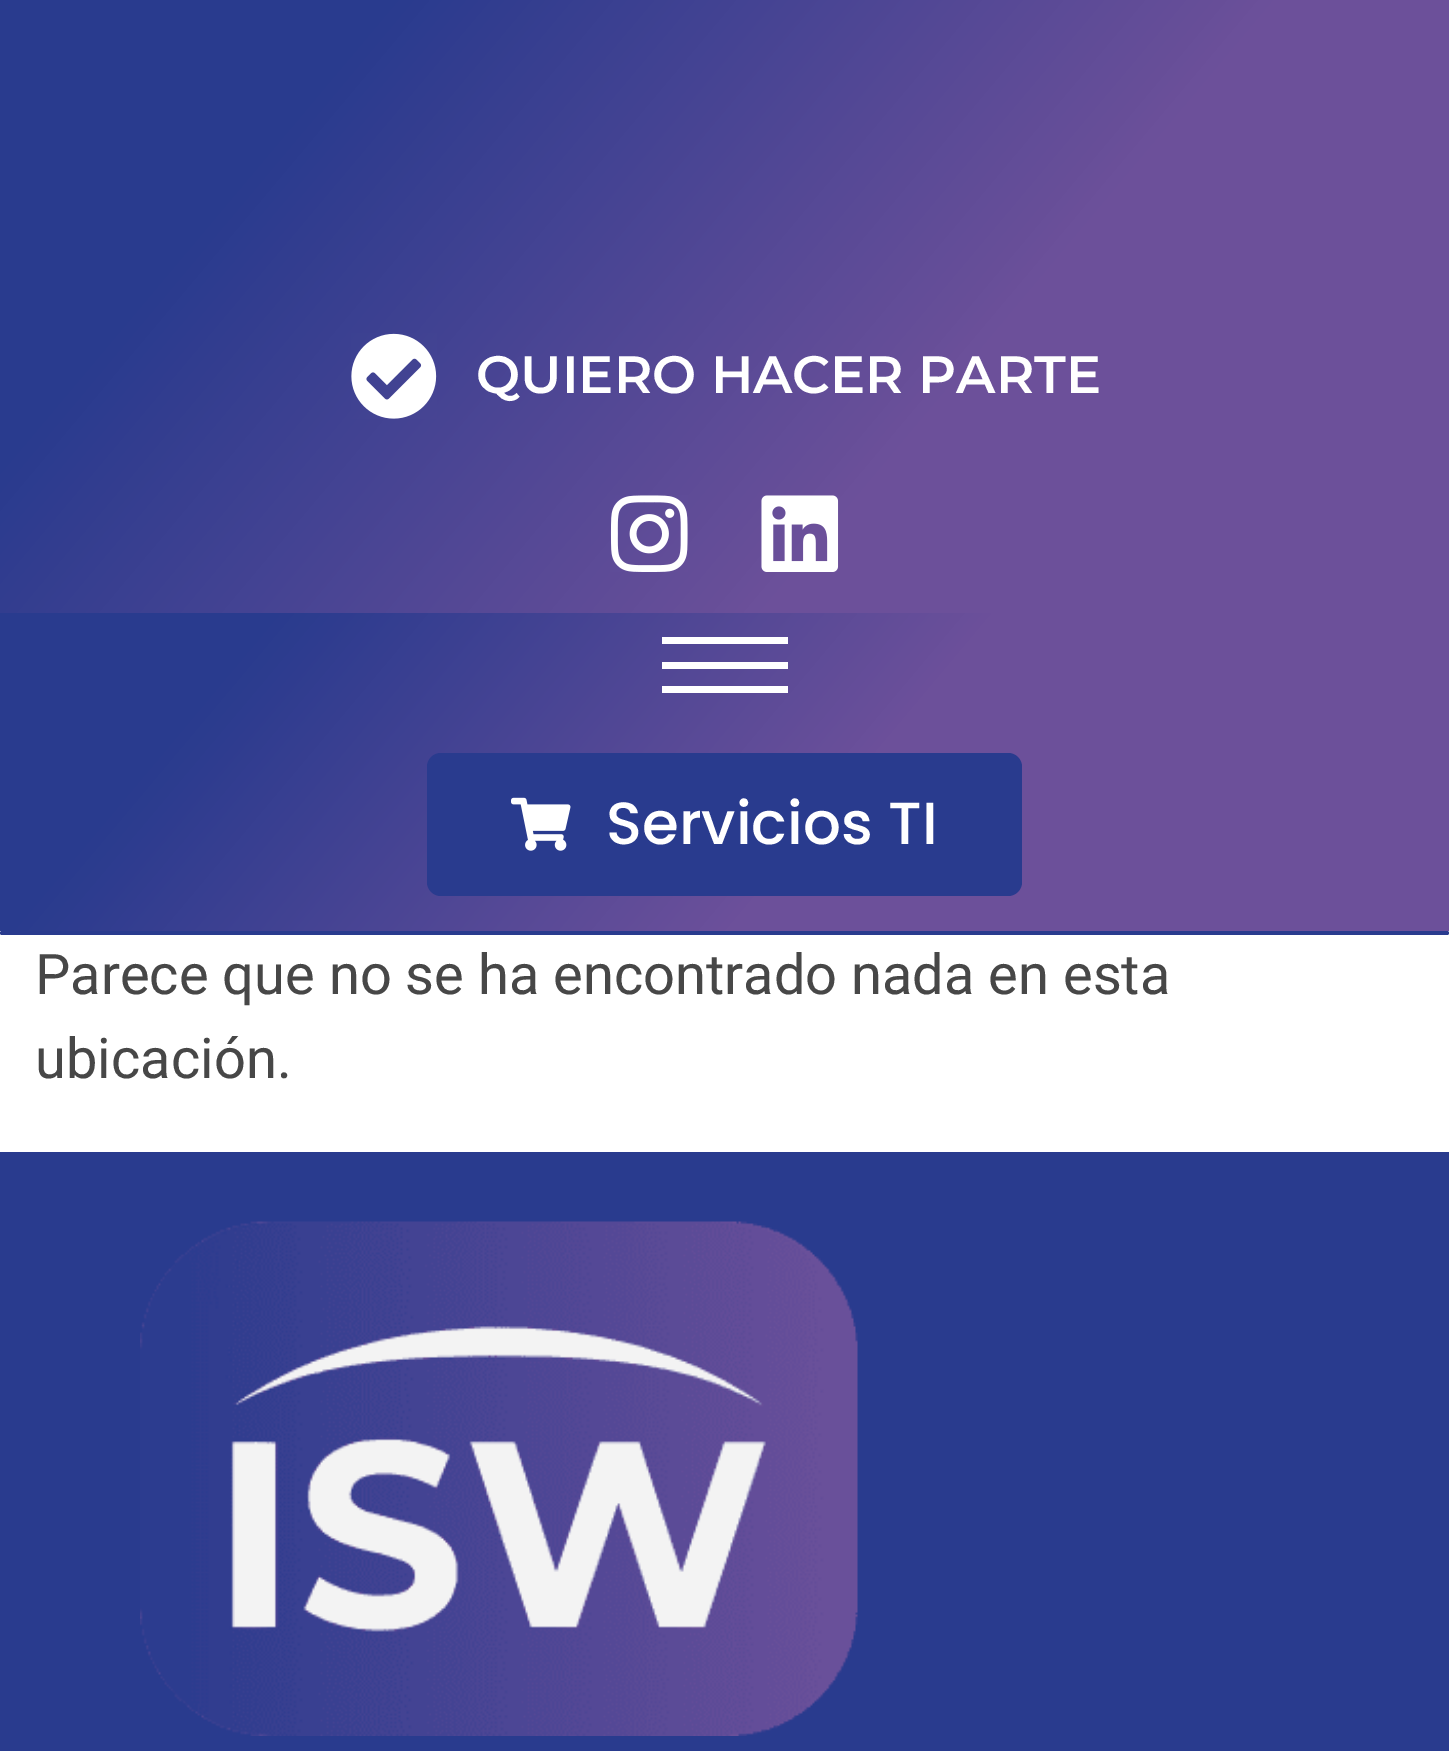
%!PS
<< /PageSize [1449 1751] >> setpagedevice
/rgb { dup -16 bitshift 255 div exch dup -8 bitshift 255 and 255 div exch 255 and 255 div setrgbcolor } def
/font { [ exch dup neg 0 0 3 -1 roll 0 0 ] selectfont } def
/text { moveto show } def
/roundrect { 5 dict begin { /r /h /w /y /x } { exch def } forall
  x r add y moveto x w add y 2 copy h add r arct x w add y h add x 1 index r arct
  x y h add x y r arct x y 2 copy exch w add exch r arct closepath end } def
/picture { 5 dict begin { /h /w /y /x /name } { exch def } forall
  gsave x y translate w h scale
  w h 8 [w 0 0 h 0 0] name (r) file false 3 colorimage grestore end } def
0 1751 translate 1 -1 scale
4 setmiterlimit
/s1 { /Montserrat-SemiBold 52.5 font 16#FFFFFF rgb } def
/s2 { /Poppins-Medium 59.5 font 16#FFFFFF rgb } def
/s3 { /Roboto-Regular 56 font 16#474747 rgb } def
16#FFFFFF rgb
0 0 1449 1751 rectfill
gsave 0 0 moveto 1449 0 lineto 1449 613 lineto 0 613 lineto closepath clip newpath
<< /ShadingType 2 /ColorSpace /DeviceRGB /Coords [149 -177 1300 790] /Extend [true true] /Function << /FunctionType 3 /Domain [0 1] /Functions [<< /FunctionType 2 /Domain [0 1] /C0 [0.161 0.231 0.557] /C1 [0.161 0.231 0.557] /N 1 >> << /FunctionType 2 /Domain [0 1] /C0 [0.161 0.231 0.557] /C1 [0.424 0.314 0.604] /N 1 >> << /FunctionType 2 /Domain [0 1] /C0 [0.424 0.314 0.604] /C1 [0.424 0.314 0.604] /N 1 >>] /Bounds [0.2 0.65] /Encode [0 1 0 1 0 1] >> >> shfill grestore
(pic1.raw) 351 333 86 86 picture
s1
(QUIERO HACER PARTE) 476 393 text
(pic2.raw) 610 495 78 77 picture
(pic3.raw) 761 495 78 77 picture
gsave 0 613 moveto 1449 613 lineto 1449 931 lineto 0 931 lineto closepath clip newpath
<< /ShadingType 2 /ColorSpace /DeviceRGB /Coords [221 349 1228 1194] /Extend [true true] /Function << /FunctionType 3 /Domain [0 1] /Functions [<< /FunctionType 2 /Domain [0 1] /C0 [0.161 0.231 0.557] /C1 [0.161 0.231 0.557] /N 1 >> << /FunctionType 2 /Domain [0 1] /C0 [0.161 0.231 0.557] /C1 [0.424 0.314 0.604] /N 1 >> << /FunctionType 2 /Domain [0 1] /C0 [0.424 0.314 0.604] /C1 [0.424 0.314 0.604] /N 1 >>] /Bounds [0.16 0.58] /Encode [0 1 0 1 0 1] >> >> shfill grestore
662 637 126 7 rectfill
662 662 126 7 rectfill
662 686 126 7 rectfill
16#293B8E rgb
427 753 595 143 14 roundrect fill
(pic4.raw) 511 797 60 54 picture
s2
(Servicios TI) 606 844 text
16#293B8E rgb
0 931 1449 4 2 roundrect fill
s3
(Parece que no se ha encontrado nada en esta) 35 994 text
(ubicación.) 35 1078 text
16#293B8E rgb
0 1152 1449 599 rectfill
(pic5.raw) 140 1221 718 515 picture
showpage
